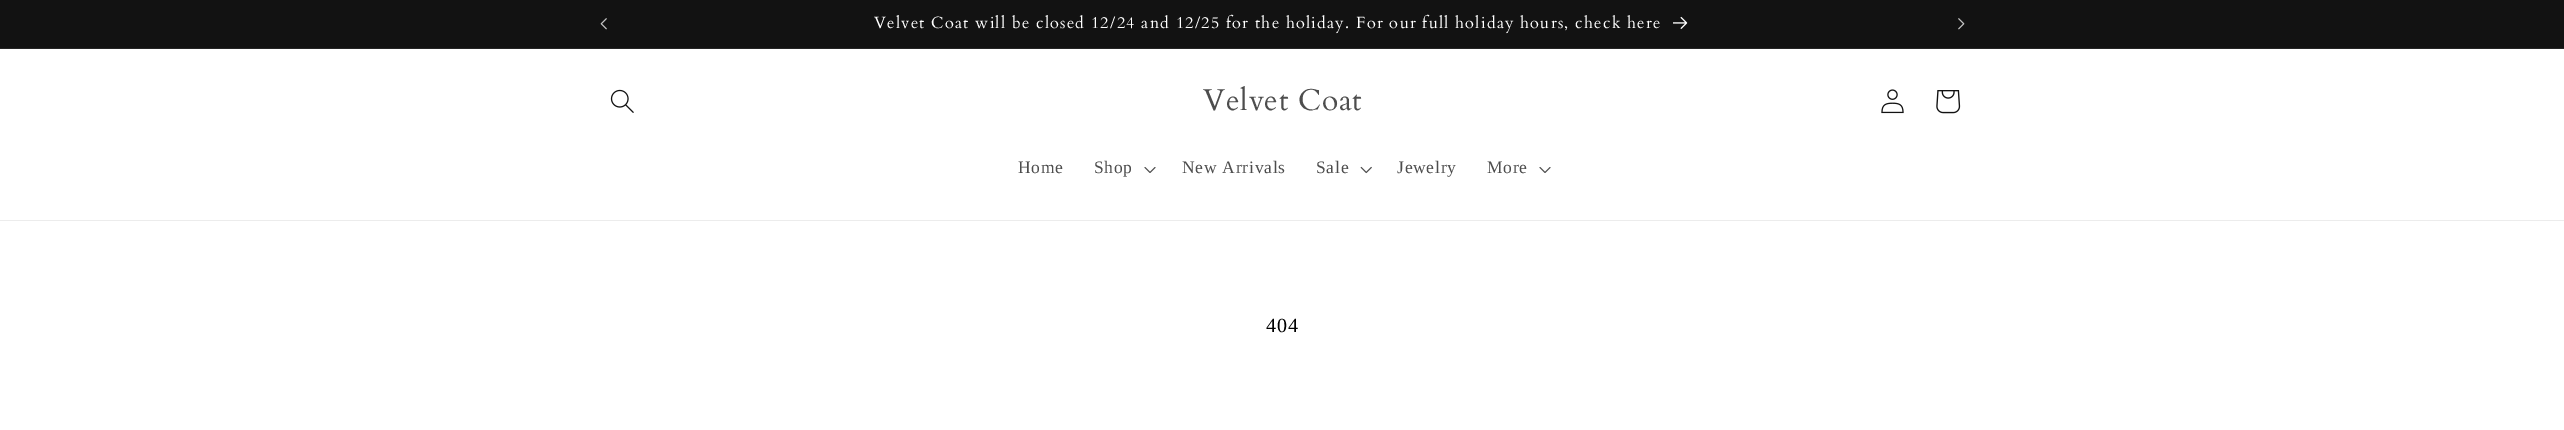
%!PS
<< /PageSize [2564 430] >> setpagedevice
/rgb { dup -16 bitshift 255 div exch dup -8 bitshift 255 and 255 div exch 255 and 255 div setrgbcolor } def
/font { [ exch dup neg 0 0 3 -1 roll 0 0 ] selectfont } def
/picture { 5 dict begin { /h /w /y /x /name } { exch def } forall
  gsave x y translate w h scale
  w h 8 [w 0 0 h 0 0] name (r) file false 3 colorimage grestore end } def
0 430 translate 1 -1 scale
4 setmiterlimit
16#FFFFFF rgb
0 0 2564 430 rectfill
16#121212 rgb
0 0 2564 48 rectfill
16#252525 rgb
0 48 2564 1 rectfill
(pic1.raw) 600 18 7 12 picture
/Cardo-Regular 16.25 font
16#FFFFFF rgb
874 28 moveto 1.25 0 (Velvet Coat will be closed 12/24 and 12/25 for the holiday. For our full holiday hours, check here) ashow
(pic2.raw) 1673 16 15 13 picture
(pic3.raw) 1958 18 7 12 picture
16#ECECEC rgb
0 220 2564 1 rectfill
(pic4.raw) 610 89 24 24 picture
/Cardo-Regular 30 font
16#4D4D4D rgb
1203 110 moveto 0.75 0 (Velvet Coat) ashow
(pic5.raw) 1881 89 23 25 picture
(pic6.raw) 1936 90 25 24 picture
/LiberationSerif-Regular 17.5 font
1018 173 moveto 0.75 0 (Home) ashow
1094 173 moveto 0.75 0 (Shop) ashow
(pic7.raw) 1144 167 12 6 picture
1182 173 moveto 0.75 0 (New Arrivals) ashow
1316 173 moveto 0.75 0 (Sale) ashow
(pic8.raw) 1360 166 12 8 picture
1397 173 moveto 0.75 0 (Jewelry) ashow
1487 173 moveto 0.75 0 (More) ashow
(pic7.raw) 1539 167 12 6 picture
/LiberationSerif-Regular 20 font
16#000000 rgb
1266 332 moveto 0.75 0 (404) ashow
showpage
